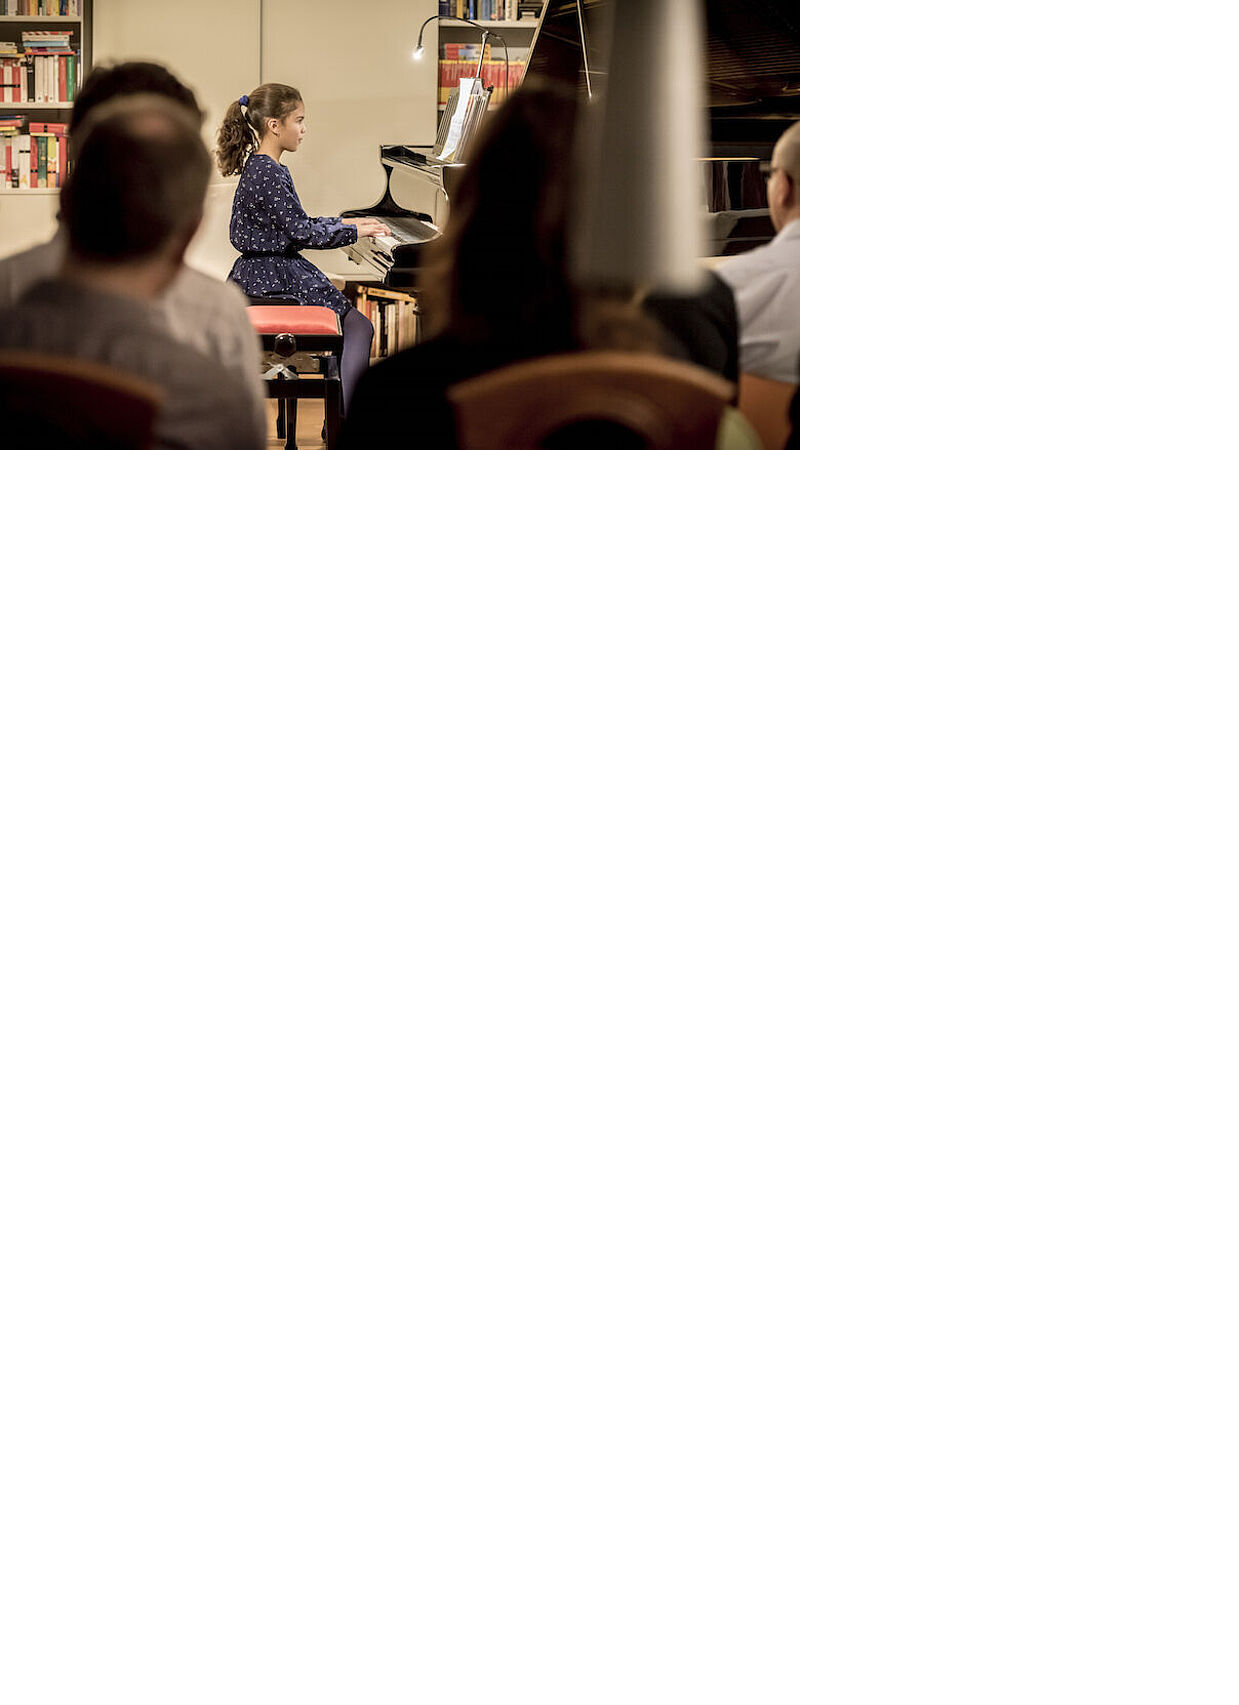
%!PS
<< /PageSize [1239 1705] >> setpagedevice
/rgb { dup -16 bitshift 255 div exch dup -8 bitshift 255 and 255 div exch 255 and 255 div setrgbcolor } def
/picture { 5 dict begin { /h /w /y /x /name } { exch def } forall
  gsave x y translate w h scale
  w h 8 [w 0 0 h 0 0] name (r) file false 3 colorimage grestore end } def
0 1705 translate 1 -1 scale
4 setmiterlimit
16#FFFFFF rgb
0 0 1239 1705 rectfill
(pic1.raw) 0 0 800 450 picture
showpage
